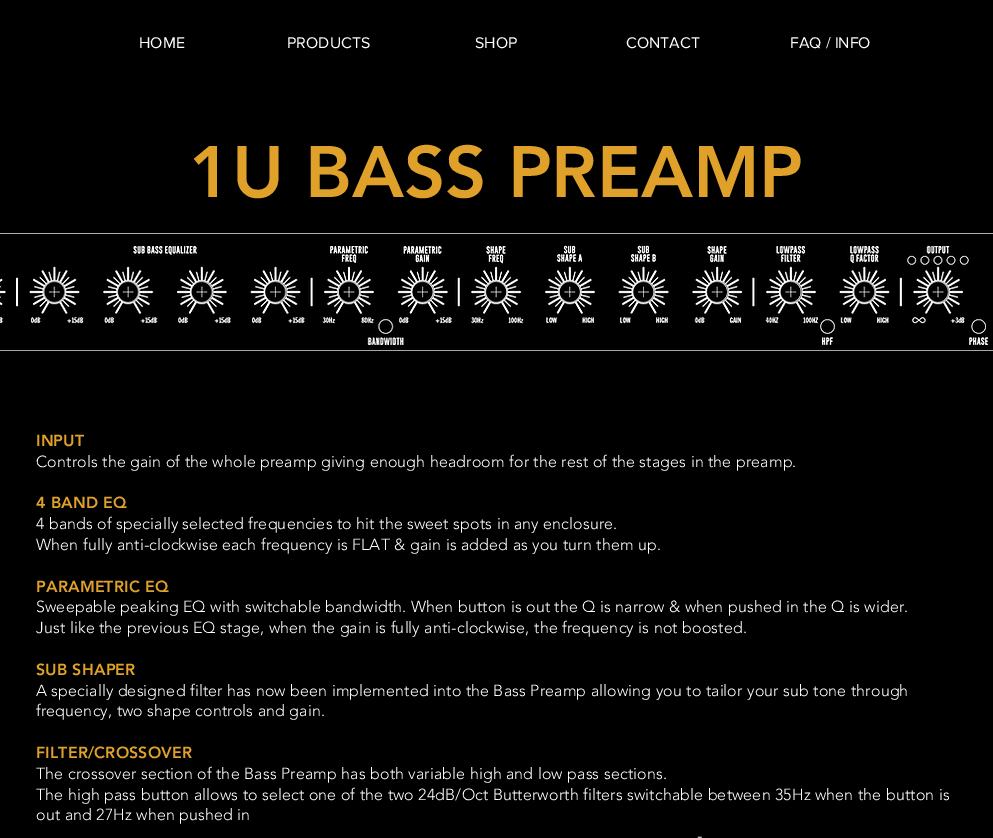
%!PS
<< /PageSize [993 838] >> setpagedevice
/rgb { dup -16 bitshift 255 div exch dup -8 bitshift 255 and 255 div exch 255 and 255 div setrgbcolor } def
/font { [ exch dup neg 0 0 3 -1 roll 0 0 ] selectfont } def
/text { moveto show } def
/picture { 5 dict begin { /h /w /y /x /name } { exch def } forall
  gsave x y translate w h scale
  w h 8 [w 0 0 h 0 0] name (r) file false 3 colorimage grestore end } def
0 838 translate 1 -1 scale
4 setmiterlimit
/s1 { /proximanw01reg-Regular 16 font 16#FFFFFF rgb } def
/s2 { /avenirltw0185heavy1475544-Black 72 font 16#DFA12A rgb } def
16#000000 rgb
0 0 993 838 rectfill
s1
(HOME) 139 48 text
(PRODUCTS) 287 48 text
(SHOP) 475 48 text
(CONTACT) 626 48 text
(FAQ / INFO) 790 48 text
s2
(1U BASS PREAMP) 189 197 text
(pic1.raw) 0 233 993 118 picture
/avenirltw0185heavy1475544-Black 16 font
36 446 moveto 0.16 0 (INPUT) ashow
/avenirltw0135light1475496-Light 16 font
16#FFFFFF rgb
36 467 moveto 0.16 0 (Controls the gain of the whole preamp giving enough headroom for the rest of the stages in the preamp.) ashow
/avenirltw0185heavy1475544-Black 16 font
16#DFA12A rgb
36 508 moveto 0.16 0 (4 BAND EQ) ashow
/avenirltw0135light1475496-Light 16 font
16#FFFFFF rgb
36 529 moveto 0.16 0 (4 bands of specially selected frequencies to hit the sweet spots in any enclosure.) ashow
36 550 moveto 0.16 0 (When fully anti-clockwise each frequency is FLAT & gain is added as you turn them up.) ashow
/avenirltw0185heavy1475544-Black 16 font
16#DFA12A rgb
36 592 moveto 0.16 0 (PARAMETRIC EQ) ashow
/avenirltw0135light1475496-Light 16 font
16#FFFFFF rgb
36 612 moveto 0.16 0 (Sweepable peaking EQ with switchable bandwidth. When button is out the Q is narrow & when pushed in the Q is wider.) ashow
36 633 moveto 0.16 0 (Just like the previous EQ stage, when the gain is fully anti-clockwise, the frequency is not boosted.) ashow
/avenirltw0185heavy1475544-Black 16 font
16#DFA12A rgb
36 675 moveto 0.16 0 (SUB SHAPER) ashow
/avenirltw0135light1475496-Light 16 font
16#FFFFFF rgb
36 696 moveto 0.16 0 (A specially designed filter has now been implemented into the Bass Preamp allowing you to tailor your sub tone through) ashow
36 716 moveto 0.16 0 (frequency, two shape controls and gain.) ashow
/avenirltw0185heavy1475544-Black 16 font
16#DFA12A rgb
36 758 moveto 0.16 0 (FILTER/CROSSOVER) ashow
/avenirltw0135light1475496-Light 16 font
16#FFFFFF rgb
36 779 moveto 0.16 0 (The crossover section of the Bass Preamp has both variable high and low pass sections.) ashow
36 800 moveto 0.16 0 (The high pass button allows to select one of the two 24dB/Oct Butterworth filters switchable between 35Hz when the button is) ashow
36 820 moveto 0.16 0 (out and 27Hz when pushed in) ashow
697 841 moveto 0.16 0 (-) ashow
showpage
